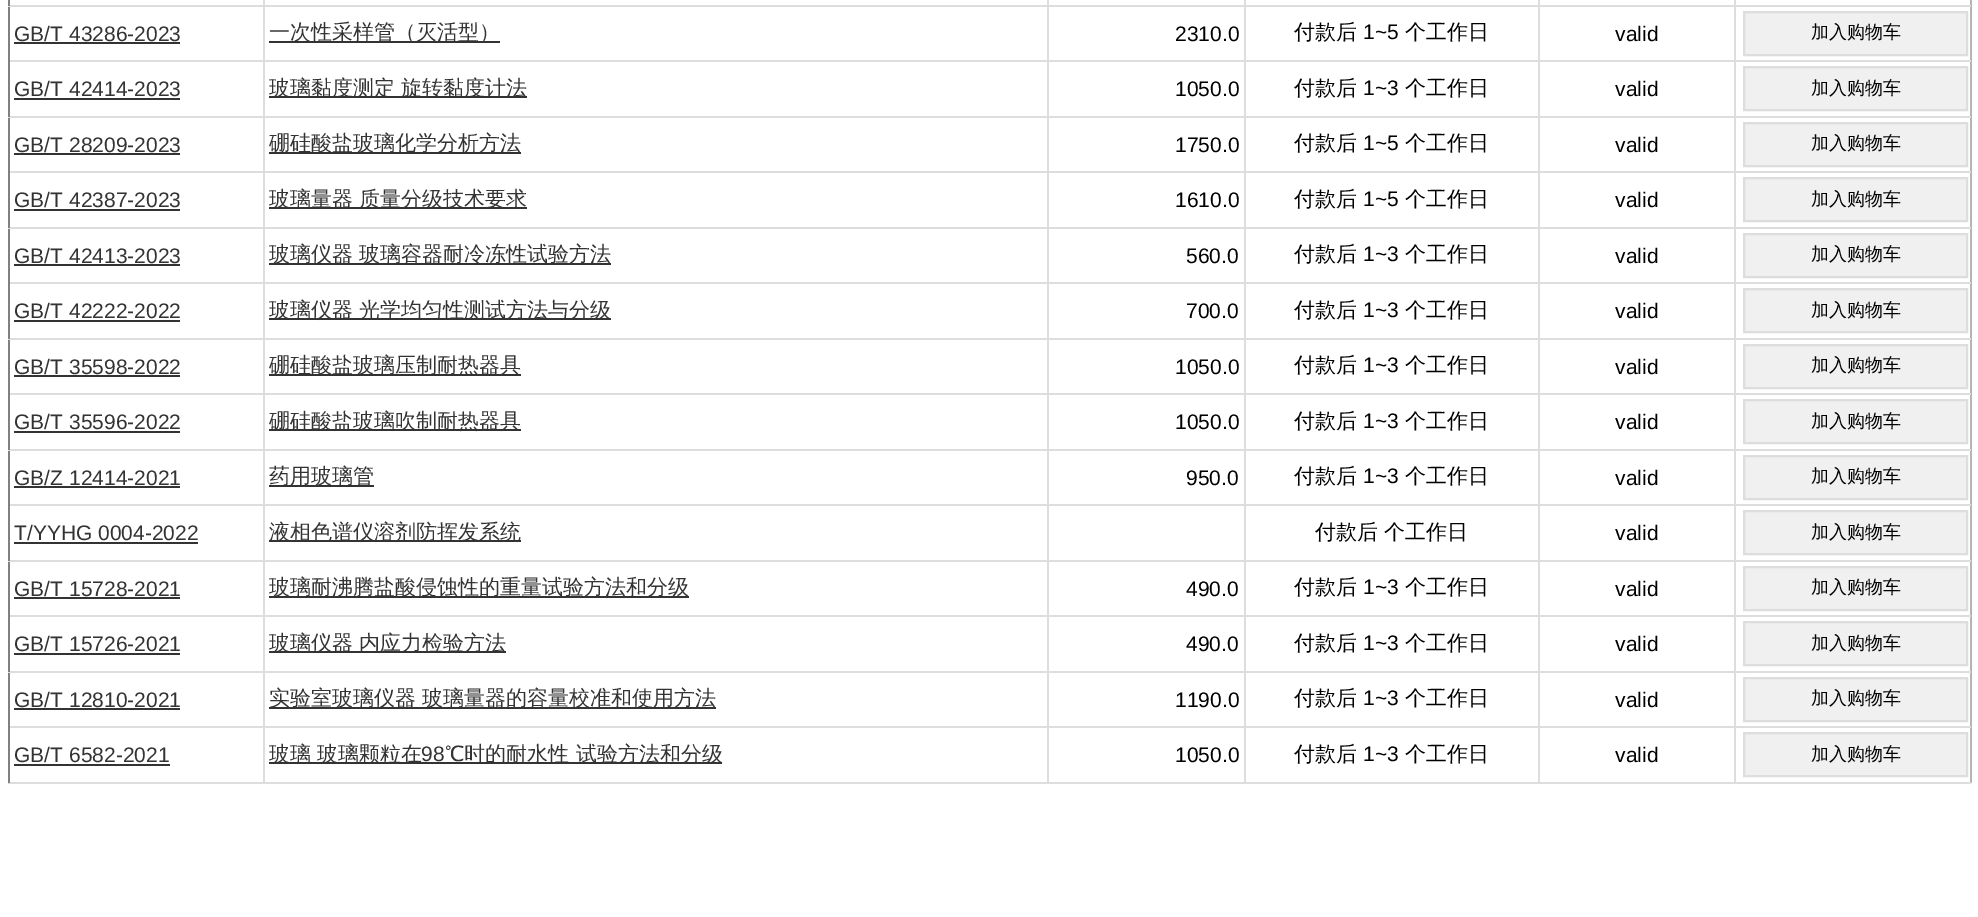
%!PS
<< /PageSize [1978 917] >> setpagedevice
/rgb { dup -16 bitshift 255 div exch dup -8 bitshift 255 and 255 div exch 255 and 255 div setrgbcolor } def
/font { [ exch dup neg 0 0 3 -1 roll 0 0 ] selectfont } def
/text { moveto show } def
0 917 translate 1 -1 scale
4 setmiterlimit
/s1 { /LiberationSans-Regular 21 font 16#333333 rgb } def
/s2 { /WenQuanYiZenHei-Medium 21 font 16#333333 rgb } def
/s3 { /LiberationSans-Regular 21 font 16#000000 rgb } def
/s4 { /WenQuanYiZenHei-Medium 21 font 16#000000 rgb } def
/s5 { /WenQuanYiZenHei-Medium 18 font 16#000000 rgb } def
16#FFFFFF rgb
0 0 1978 917 rectfill
16#B4B4B4 rgb
1970 0 2 783 rectfill
16#DDDDDD rgb
1734 782 237 2 rectfill
1734 726 2 57 rectfill
1734 726 237 2 rectfill
1734 671 2 57 rectfill
1734 671 237 2 rectfill
1734 615 2 57 rectfill
1734 615 237 2 rectfill
1734 560 2 57 rectfill
1734 560 237 2 rectfill
1734 504 2 57 rectfill
1734 504 237 2 rectfill
1734 449 2 57 rectfill
1734 449 237 2 rectfill
1734 393 2 57 rectfill
1734 393 237 2 rectfill
1734 338 2 57 rectfill
1734 338 237 2 rectfill
1734 282 2 57 rectfill
1734 282 237 2 rectfill
1734 227 2 57 rectfill
1734 227 237 2 rectfill
1734 171 2 57 rectfill
1734 171 237 2 rectfill
1734 116 2 57 rectfill
1734 116 237 2 rectfill
1734 60 2 57 rectfill
1734 60 237 2 rectfill
1734 5 2 57 rectfill
1734 5 237 2 rectfill
1734 0 2 6 rectfill
1538 782 198 2 rectfill
1538 726 2 57 rectfill
1538 726 198 2 rectfill
1538 671 2 57 rectfill
1538 671 198 2 rectfill
1538 615 2 57 rectfill
1538 615 198 2 rectfill
1538 560 2 57 rectfill
1538 560 198 2 rectfill
1538 504 2 57 rectfill
1538 504 198 2 rectfill
1538 449 2 57 rectfill
1538 449 198 2 rectfill
1538 393 2 57 rectfill
1538 393 198 2 rectfill
1538 338 2 57 rectfill
1538 338 198 2 rectfill
1538 282 2 57 rectfill
1538 282 198 2 rectfill
1538 227 2 57 rectfill
1538 227 198 2 rectfill
1538 171 2 57 rectfill
1538 171 198 2 rectfill
1538 116 2 57 rectfill
1538 116 198 2 rectfill
1538 60 2 57 rectfill
1538 60 198 2 rectfill
1538 5 2 57 rectfill
1538 5 198 2 rectfill
1538 0 2 6 rectfill
1244 782 295 2 rectfill
1244 726 2 57 rectfill
1244 726 295 2 rectfill
1244 671 2 57 rectfill
1244 671 295 2 rectfill
1244 615 2 57 rectfill
1244 615 295 2 rectfill
1244 560 2 57 rectfill
1244 560 295 2 rectfill
1244 504 2 57 rectfill
1244 504 295 2 rectfill
1244 449 2 57 rectfill
1244 449 295 2 rectfill
1244 393 2 57 rectfill
1244 393 295 2 rectfill
1244 338 2 57 rectfill
1244 338 295 2 rectfill
1244 282 2 57 rectfill
1244 282 295 2 rectfill
1244 227 2 57 rectfill
1244 227 295 2 rectfill
1244 171 2 57 rectfill
1244 171 295 2 rectfill
1244 116 2 57 rectfill
1244 116 295 2 rectfill
1244 60 2 57 rectfill
1244 60 295 2 rectfill
1244 5 2 57 rectfill
1244 5 295 2 rectfill
1244 0 2 6 rectfill
1047 782 198 2 rectfill
1047 726 2 57 rectfill
1047 726 198 2 rectfill
1047 671 2 57 rectfill
1047 671 198 2 rectfill
1047 615 2 57 rectfill
1047 615 198 2 rectfill
1047 560 2 57 rectfill
1047 560 198 2 rectfill
1047 504 2 57 rectfill
1047 504 198 2 rectfill
1047 449 2 57 rectfill
1047 449 198 2 rectfill
1047 393 2 57 rectfill
1047 393 198 2 rectfill
1047 338 2 57 rectfill
1047 338 198 2 rectfill
1047 282 2 57 rectfill
1047 282 198 2 rectfill
1047 227 2 57 rectfill
1047 227 198 2 rectfill
1047 171 2 57 rectfill
1047 171 198 2 rectfill
1047 116 2 57 rectfill
1047 116 198 2 rectfill
1047 60 2 57 rectfill
1047 60 198 2 rectfill
1047 5 2 57 rectfill
1047 5 198 2 rectfill
1047 0 2 6 rectfill
263 782 786 2 rectfill
263 726 2 57 rectfill
263 726 786 2 rectfill
263 671 2 57 rectfill
263 671 786 2 rectfill
263 615 2 57 rectfill
263 615 786 2 rectfill
263 560 2 57 rectfill
263 560 786 2 rectfill
263 504 2 57 rectfill
263 504 786 2 rectfill
263 449 2 57 rectfill
263 449 786 2 rectfill
263 393 2 57 rectfill
263 393 786 2 rectfill
263 338 2 57 rectfill
263 338 786 2 rectfill
263 282 2 57 rectfill
263 282 786 2 rectfill
263 227 2 57 rectfill
263 227 786 2 rectfill
263 171 2 57 rectfill
263 171 786 2 rectfill
263 116 2 57 rectfill
263 116 786 2 rectfill
263 60 2 57 rectfill
263 60 786 2 rectfill
263 5 2 57 rectfill
263 5 786 2 rectfill
263 0 2 6 rectfill
8 782 256 2 rectfill
16#808080 rgb
8 726 2 57 rectfill
16#DDDDDD rgb
8 726 256 2 rectfill
16#808080 rgb
8 671 2 57 rectfill
16#DDDDDD rgb
8 671 256 2 rectfill
16#808080 rgb
8 615 2 57 rectfill
16#DDDDDD rgb
8 615 256 2 rectfill
16#808080 rgb
8 560 2 57 rectfill
16#DDDDDD rgb
8 560 256 2 rectfill
16#808080 rgb
8 504 2 57 rectfill
16#DDDDDD rgb
8 504 256 2 rectfill
16#808080 rgb
8 449 2 57 rectfill
16#DDDDDD rgb
8 449 256 2 rectfill
16#808080 rgb
8 393 2 57 rectfill
16#DDDDDD rgb
8 393 256 2 rectfill
16#808080 rgb
8 338 2 57 rectfill
16#DDDDDD rgb
8 338 256 2 rectfill
16#808080 rgb
8 282 2 57 rectfill
16#DDDDDD rgb
8 282 256 2 rectfill
16#808080 rgb
8 227 2 57 rectfill
16#DDDDDD rgb
8 227 256 2 rectfill
16#808080 rgb
8 171 2 57 rectfill
16#DDDDDD rgb
8 171 256 2 rectfill
16#808080 rgb
8 116 2 57 rectfill
16#DDDDDD rgb
8 116 256 2 rectfill
16#808080 rgb
8 60 2 57 rectfill
16#DDDDDD rgb
8 60 256 2 rectfill
16#808080 rgb
8 5 2 57 rectfill
16#DDDDDD rgb
8 5 256 2 rectfill
16#808080 rgb
8 0 2 6 rectfill
s1
(GB/T 43286-2023) 14 41 text
14 42 166 2 rectfill
269 41 231 2 rectfill
s2
(一次性采样管（灭活型）) 269 39 text
s3
(2310.0) 1175 41 text
s4
(付款后) 1294 39 text
s3
(1~5) 1363 39 text
s4
(个工作日) 1405 39 text
s3
(valid) 1615 41 text
16#F0F0F0 rgb
1744 12 moveto 1967 12 lineto 1967 55 lineto 1744 55 lineto closepath gsave fill grestore
16#DDDDDD rgb
2 setlinewidth
stroke
s5
(加入购物车) 1811 38 text
s1
(GB/T 42414-2023) 14 96 text
14 98 166 2 rectfill
269 96 258 2 rectfill
s2
(玻璃黏度测定 旋转黏度计法) 269 95 text
s3
(1050.0) 1175 96 text
s4
(付款后) 1294 95 text
s3
(1~3) 1363 95 text
s4
(个工作日) 1405 95 text
s3
(valid) 1615 96 text
16#F0F0F0 rgb
1744 67 moveto 1967 67 lineto 1967 110 lineto 1744 110 lineto closepath gsave fill grestore
16#DDDDDD rgb
stroke
s5
(加入购物车) 1811 94 text
s1
(GB/T 28209-2023) 14 152 text
14 153 166 2 rectfill
269 152 252 2 rectfill
s2
(硼硅酸盐玻璃化学分析方法) 269 150 text
s3
(1750.0) 1175 152 text
s4
(付款后) 1294 150 text
s3
(1~5) 1363 150 text
s4
(个工作日) 1405 150 text
s3
(valid) 1615 152 text
16#F0F0F0 rgb
1744 123 moveto 1967 123 lineto 1967 166 lineto 1744 166 lineto closepath gsave fill grestore
16#DDDDDD rgb
stroke
s5
(加入购物车) 1811 149 text
s1
(GB/T 42387-2023) 14 207 text
14 209 166 2 rectfill
269 207 258 2 rectfill
s2
(玻璃量器 质量分级技术要求) 269 206 text
s3
(1610.0) 1175 207 text
s4
(付款后) 1294 206 text
s3
(1~5) 1363 206 text
s4
(个工作日) 1405 206 text
s3
(valid) 1615 207 text
16#F0F0F0 rgb
1744 178 moveto 1967 178 lineto 1967 221 lineto 1744 221 lineto closepath gsave fill grestore
16#DDDDDD rgb
stroke
s5
(加入购物车) 1811 205 text
s1
(GB/T 42413-2023) 14 263 text
14 264 166 2 rectfill
269 263 342 2 rectfill
s2
(玻璃仪器 玻璃容器耐冷冻性试验方法) 269 261 text
s3
(560.0) 1186 263 text
s4
(付款后) 1294 261 text
s3
(1~3) 1363 261 text
s4
(个工作日) 1405 261 text
s3
(valid) 1615 263 text
16#F0F0F0 rgb
1744 234 moveto 1967 234 lineto 1967 277 lineto 1744 277 lineto closepath gsave fill grestore
16#DDDDDD rgb
stroke
s5
(加入购物车) 1811 260 text
s1
(GB/T 42222-2022) 14 318 text
14 320 166 2 rectfill
269 318 342 2 rectfill
s2
(玻璃仪器 光学均匀性测试方法与分级) 269 317 text
s3
(700.0) 1186 318 text
s4
(付款后) 1294 317 text
s3
(1~3) 1363 317 text
s4
(个工作日) 1405 317 text
s3
(valid) 1615 318 text
16#F0F0F0 rgb
1744 289 moveto 1967 289 lineto 1967 332 lineto 1744 332 lineto closepath gsave fill grestore
16#DDDDDD rgb
stroke
s5
(加入购物车) 1811 316 text
s1
(GB/T 35598-2022) 14 374 text
14 375 166 2 rectfill
269 374 252 2 rectfill
s2
(硼硅酸盐玻璃压制耐热器具) 269 372 text
s3
(1050.0) 1175 374 text
s4
(付款后) 1294 372 text
s3
(1~3) 1363 372 text
s4
(个工作日) 1405 372 text
s3
(valid) 1615 374 text
16#F0F0F0 rgb
1744 345 moveto 1967 345 lineto 1967 388 lineto 1744 388 lineto closepath gsave fill grestore
16#DDDDDD rgb
stroke
s5
(加入购物车) 1811 371 text
s1
(GB/T 35596-2022) 14 429 text
14 431 166 2 rectfill
269 429 252 2 rectfill
s2
(硼硅酸盐玻璃吹制耐热器具) 269 428 text
s3
(1050.0) 1175 429 text
s4
(付款后) 1294 428 text
s3
(1~3) 1363 428 text
s4
(个工作日) 1405 428 text
s3
(valid) 1615 429 text
16#F0F0F0 rgb
1744 400 moveto 1967 400 lineto 1967 443 lineto 1744 443 lineto closepath gsave fill grestore
16#DDDDDD rgb
stroke
s5
(加入购物车) 1811 427 text
s1
(GB/Z 12414-2021) 14 485 text
14 486 166 2 rectfill
269 485 105 2 rectfill
s2
(药用玻璃管) 269 483 text
s3
(950.0) 1186 485 text
s4
(付款后) 1294 483 text
s3
(1~3) 1363 483 text
s4
(个工作日) 1405 483 text
s3
(valid) 1615 485 text
16#F0F0F0 rgb
1744 456 moveto 1967 456 lineto 1967 499 lineto 1744 499 lineto closepath gsave fill grestore
16#DDDDDD rgb
stroke
s5
(加入购物车) 1811 482 text
s1
(T/YYHG 0004-2022) 14 540 text
14 542 184 2 rectfill
269 540 252 2 rectfill
s2
(液相色谱仪溶剂防挥发系统) 269 539 text
s4
(付款后) 1315 539 text
(个工作日) 1384 539 text
s3
(valid) 1615 540 text
16#F0F0F0 rgb
1744 511 moveto 1967 511 lineto 1967 554 lineto 1744 554 lineto closepath gsave fill grestore
16#DDDDDD rgb
stroke
s5
(加入购物车) 1811 538 text
s1
(GB/T 15728-2021) 14 596 text
14 597 166 2 rectfill
269 596 420 2 rectfill
s2
(玻璃耐沸腾盐酸侵蚀性的重量试验方法和分级) 269 594 text
s3
(490.0) 1186 596 text
s4
(付款后) 1294 594 text
s3
(1~3) 1363 594 text
s4
(个工作日) 1405 594 text
s3
(valid) 1615 596 text
16#F0F0F0 rgb
1744 567 moveto 1967 567 lineto 1967 610 lineto 1744 610 lineto closepath gsave fill grestore
16#DDDDDD rgb
stroke
s5
(加入购物车) 1811 593 text
s1
(GB/T 15726-2021) 14 651 text
14 653 166 2 rectfill
269 651 237 2 rectfill
s2
(玻璃仪器 内应力检验方法) 269 650 text
s3
(490.0) 1186 651 text
s4
(付款后) 1294 650 text
s3
(1~3) 1363 650 text
s4
(个工作日) 1405 650 text
s3
(valid) 1615 651 text
16#F0F0F0 rgb
1744 622 moveto 1967 622 lineto 1967 665 lineto 1744 665 lineto closepath gsave fill grestore
16#DDDDDD rgb
stroke
s5
(加入购物车) 1811 649 text
s1
(GB/T 12810-2021) 14 707 text
14 708 166 2 rectfill
269 707 447 2 rectfill
s2
(实验室玻璃仪器 玻璃量器的容量校准和使用方法) 269 705 text
s3
(1190.0) 1175 707 text
s4
(付款后) 1294 705 text
s3
(1~3) 1363 705 text
s4
(个工作日) 1405 705 text
s3
(valid) 1615 707 text
16#F0F0F0 rgb
1744 678 moveto 1967 678 lineto 1967 721 lineto 1744 721 lineto closepath gsave fill grestore
16#DDDDDD rgb
stroke
s5
(加入购物车) 1811 704 text
s1
(GB/T 6582-2021) 14 762 text
14 764 156 2 rectfill
269 762 453 2 rectfill
s2
(玻璃 玻璃颗粒在) 269 761 text
s1
(98) 421 761 text
s2
(℃时的耐水性 试验方法和分级) 445 761 text
s3
(1050.0) 1175 762 text
s4
(付款后) 1294 761 text
s3
(1~3) 1363 761 text
s4
(个工作日) 1405 761 text
s3
(valid) 1615 762 text
16#F0F0F0 rgb
1744 733 moveto 1967 733 lineto 1967 776 lineto 1744 776 lineto closepath gsave fill grestore
16#DDDDDD rgb
stroke
s5
(加入购物车) 1811 760 text
showpage
